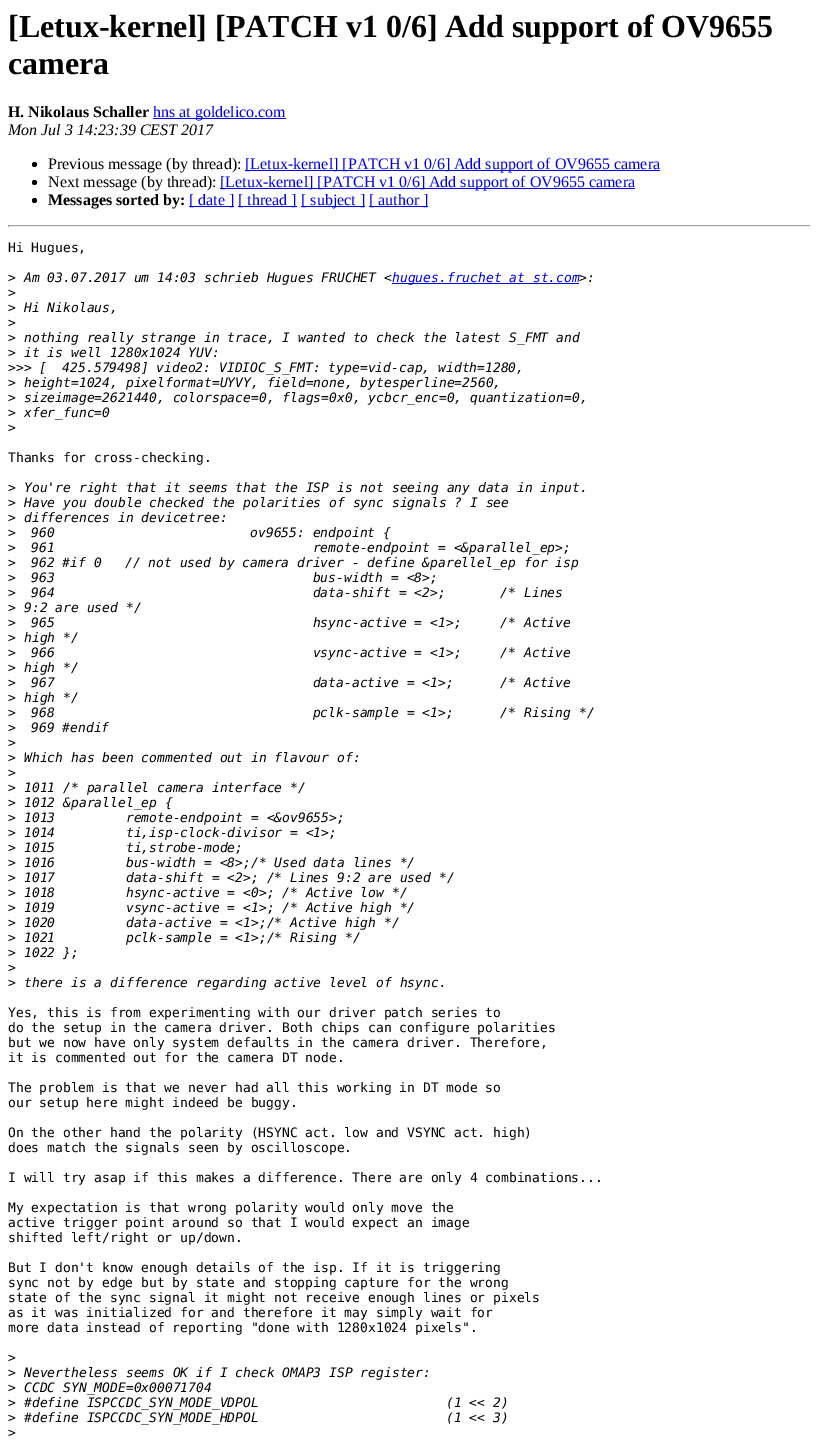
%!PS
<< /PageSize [819 1448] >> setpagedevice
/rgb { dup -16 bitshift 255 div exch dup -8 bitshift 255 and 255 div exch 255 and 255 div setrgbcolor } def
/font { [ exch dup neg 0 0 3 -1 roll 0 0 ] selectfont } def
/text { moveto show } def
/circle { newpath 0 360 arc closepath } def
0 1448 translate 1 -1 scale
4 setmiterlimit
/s1 { /LiberationSerif-Bold 32 font 16#000000 rgb } def
/s2 { /LiberationSerif-Bold 16 font 16#000000 rgb } def
/s3 { /LiberationSerif-Regular 16 font 16#0000EE rgb } def
/s4 { /LiberationSerif-Italic 16 font 16#000000 rgb } def
/s5 { /LiberationSerif-Regular 16 font 16#000000 rgb } def
/s6 { /DejaVuSansMono-Regular 13 font 16#000000 rgb } def
/s7 { /DejaVuSansMono-Italic 13 font 16#000000 rgb } def
/s8 { /DejaVuSansMono-Italic 13 font 16#0000EE rgb } def
16#FFFFFF rgb
0 0 819 1448 rectfill
s1
([Letux-kernel] [PATCH v1 0/6] Add support of OV9655) 8 37 text
(camera) 8 74 text
s2
(H. Nikolaus Schaller) 8 117 text
16#0000EE rgb
153 118 133 1 rectfill
s3
(hns at goldelico.com) 153 117 text
s4
(Mon Jul 3 14:23:39 CEST 2017) 8 135 text
34.5 164.5 2.5 circle fill
s5
(Previous message \(by thread\):) 48 169 text
16#0000EE rgb
245 170 415 1 rectfill
([Letux-kernel] [PATCH v1 0/6] Add support of OV9655 camera) 245 169 text
16#000000 rgb
34.5 182.5 2.5 circle fill
(Next message \(by thread\):) 48 187 text
16#0000EE rgb
220 188 415 1 rectfill
([Letux-kernel] [PATCH v1 0/6] Add support of OV9655 camera) 220 187 text
16#000000 rgb
34.5 200.5 2.5 circle fill
s2
(Messages sorted by:) 48 205 text
16#0000EE rgb
189 206 45 1 rectfill
s3
([ date ]) 189 205 text
238 206 59 1 rectfill
([ thread ]) 238 205 text
301 206 64 1 rectfill
([ subject ]) 301 205 text
369 206 59 1 rectfill
([ author ]) 369 205 text
16#9F9F9F rgb
8 225 803 1 rectfill
16#EEEEEE rgb
810 225 1 2 rectfill
8 226 803 1 rectfill
16#9F9F9F rgb
8 225 1 2 rectfill
s6
(Hi Hugues,) 8 252 text
(>) 8 282 text
s7
(Am 03.07.2017 um 14:03 schrieb Hugues FRUCHET <) 24 282 text
16#0000EE rgb
392 283 187 1 rectfill
(hugues.fruchet at st.com) 392 282 text
s7
(>:) 579 282 text
s6
(>) 8 297 text
(>) 8 312 text
s7
(Hi Nikolaus,) 24 312 text
s6
(>) 8 327 text
(>) 8 342 text
s7
(nothing really strange in trace, I wanted to check the latest S_FMT and) 24 342 text
s6
(>) 8 357 text
s7
(it is well 1280x1024 YUV:) 24 357 text
s6
(>>>) 8 372 text
s7
([  425.579498] video2: VIDIOC_S_FMT: type=vid-cap, width=1280,) 39 372 text
s6
(>) 8 387 text
s7
(height=1024, pixelformat=UYVY, field=none, bytesperline=2560,) 24 387 text
s6
(>) 8 402 text
s7
(sizeimage=2621440, colorspace=0, flags=0x0, ycbcr_enc=0, quantization=0,) 24 402 text
s6
(>) 8 417 text
s7
(xfer_func=0) 24 417 text
s6
(>) 8 432 text
(Thanks for cross-checking.) 8 462 text
(>) 8 492 text
s7
(You're right that it seems that the ISP is not seeing any data in input.) 24 492 text
s6
(>) 8 507 text
s7
(Have you double checked the polarities of sync signals ? I see) 24 507 text
s6
(>) 8 522 text
s7
(differences in devicetree:) 24 522 text
s6
(>) 8 537 text
s7
(960                         ov9655: endpoint {) 31 537 text
s6
(>) 8 552 text
s7
(961                                 remote-endpoint = <&parallel_ep>;) 31 552 text
s6
(>) 8 567 text
s7
(962 #if 0   // not used by camera driver - define &parellel_ep for isp) 31 567 text
s6
(>) 8 582 text
s7
(963                                 bus-width = <8>;) 31 582 text
s6
(>) 8 597 text
s7
(964                                 data-shift = <2>;       /* Lines) 31 597 text
s6
(>) 8 612 text
s7
(9:2 are used */) 24 612 text
s6
(>) 8 627 text
s7
(965                                 hsync-active = <1>;     /* Active) 31 627 text
s6
(>) 8 642 text
s7
(high */) 24 642 text
s6
(>) 8 657 text
s7
(966                                 vsync-active = <1>;     /* Active) 31 657 text
s6
(>) 8 672 text
s7
(high */) 24 672 text
s6
(>) 8 687 text
s7
(967                                 data-active = <1>;      /* Active) 31 687 text
s6
(>) 8 702 text
s7
(high */) 24 702 text
s6
(>) 8 717 text
s7
(968                                 pclk-sample = <1>;      /* Rising */) 31 717 text
s6
(>) 8 732 text
s7
(969 #endif) 31 732 text
s6
(>) 8 747 text
(>) 8 762 text
s7
(Which has been commented out in flavour of:) 24 762 text
s6
(>) 8 777 text
(>) 8 792 text
s7
(1011 /* parallel camera interface */) 24 792 text
s6
(>) 8 807 text
s7
(1012 &parallel_ep {) 24 807 text
s6
(>) 8 822 text
s7
(1013         remote-endpoint = <&ov9655>;) 24 822 text
s6
(>) 8 837 text
s7
(1014         ti,isp-clock-divisor = <1>;) 24 837 text
s6
(>) 8 852 text
s7
(1015         ti,strobe-mode;) 24 852 text
s6
(>) 8 867 text
s7
(1016         bus-width = <8>;/* Used data lines */) 24 867 text
s6
(>) 8 882 text
s7
(1017         data-shift = <2>; /* Lines 9:2 are used */) 24 882 text
s6
(>) 8 897 text
s7
(1018         hsync-active = <0>; /* Active low */) 24 897 text
s6
(>) 8 912 text
s7
(1019         vsync-active = <1>; /* Active high */) 24 912 text
s6
(>) 8 927 text
s7
(1020         data-active = <1>;/* Active high */) 24 927 text
s6
(>) 8 942 text
s7
(1021         pclk-sample = <1>;/* Rising */) 24 942 text
s6
(>) 8 957 text
s7
(1022 };) 24 957 text
s6
(>) 8 972 text
(>) 8 987 text
s7
(there is a difference regarding active level of hsync.) 24 987 text
s6
(Yes, this is from experimenting with our driver patch series to) 8 1017 text
(do the setup in the camera driver. Both chips can configure polarities) 8 1032 text
(but we now have only system defaults in the camera driver. Therefore,) 8 1047 text
(it is commented out for the camera DT node.) 8 1062 text
(The problem is that we never had all this working in DT mode so) 8 1092 text
(our setup here might indeed be buggy.) 8 1107 text
(On the other hand the polarity \(HSYNC act. low and VSYNC act. high\)) 8 1137 text
(does match the signals seen by oscilloscope.) 8 1152 text
(I will try asap if this makes a difference. There are only 4 combinations...) 8 1182 text
(My expectation is that wrong polarity would only move the) 8 1212 text
(active trigger point around so that I would expect an image) 8 1227 text
(shifted left/right or up/down.) 8 1242 text
(But I don't know enough details of the isp. If it is triggering) 8 1272 text
(sync not by edge but by state and stopping capture for the wrong) 8 1287 text
(state of the sync signal it might not receive enough lines or pixels) 8 1302 text
(as it was initialized for and therefore it may simply wait for) 8 1317 text
(more data instead of reporting "done with 1280x1024 pixels".) 8 1332 text
(>) 8 1362 text
(>) 8 1377 text
s7
(Nevertheless seems OK if I check OMAP3 ISP register:) 24 1377 text
s6
(>) 8 1392 text
s7
(CCDC SYN_MODE=0x00071704) 24 1392 text
s6
(>) 8 1407 text
s7
(#define ISPCCDC_SYN_MODE_VDPOL) 24 1407 text
(\(1 << 2\)) 446 1407 text
s6
(>) 8 1422 text
s7
(#define ISPCCDC_SYN_MODE_HDPOL) 24 1422 text
(\(1 << 3\)) 446 1422 text
s6
(>) 8 1437 text
showpage
